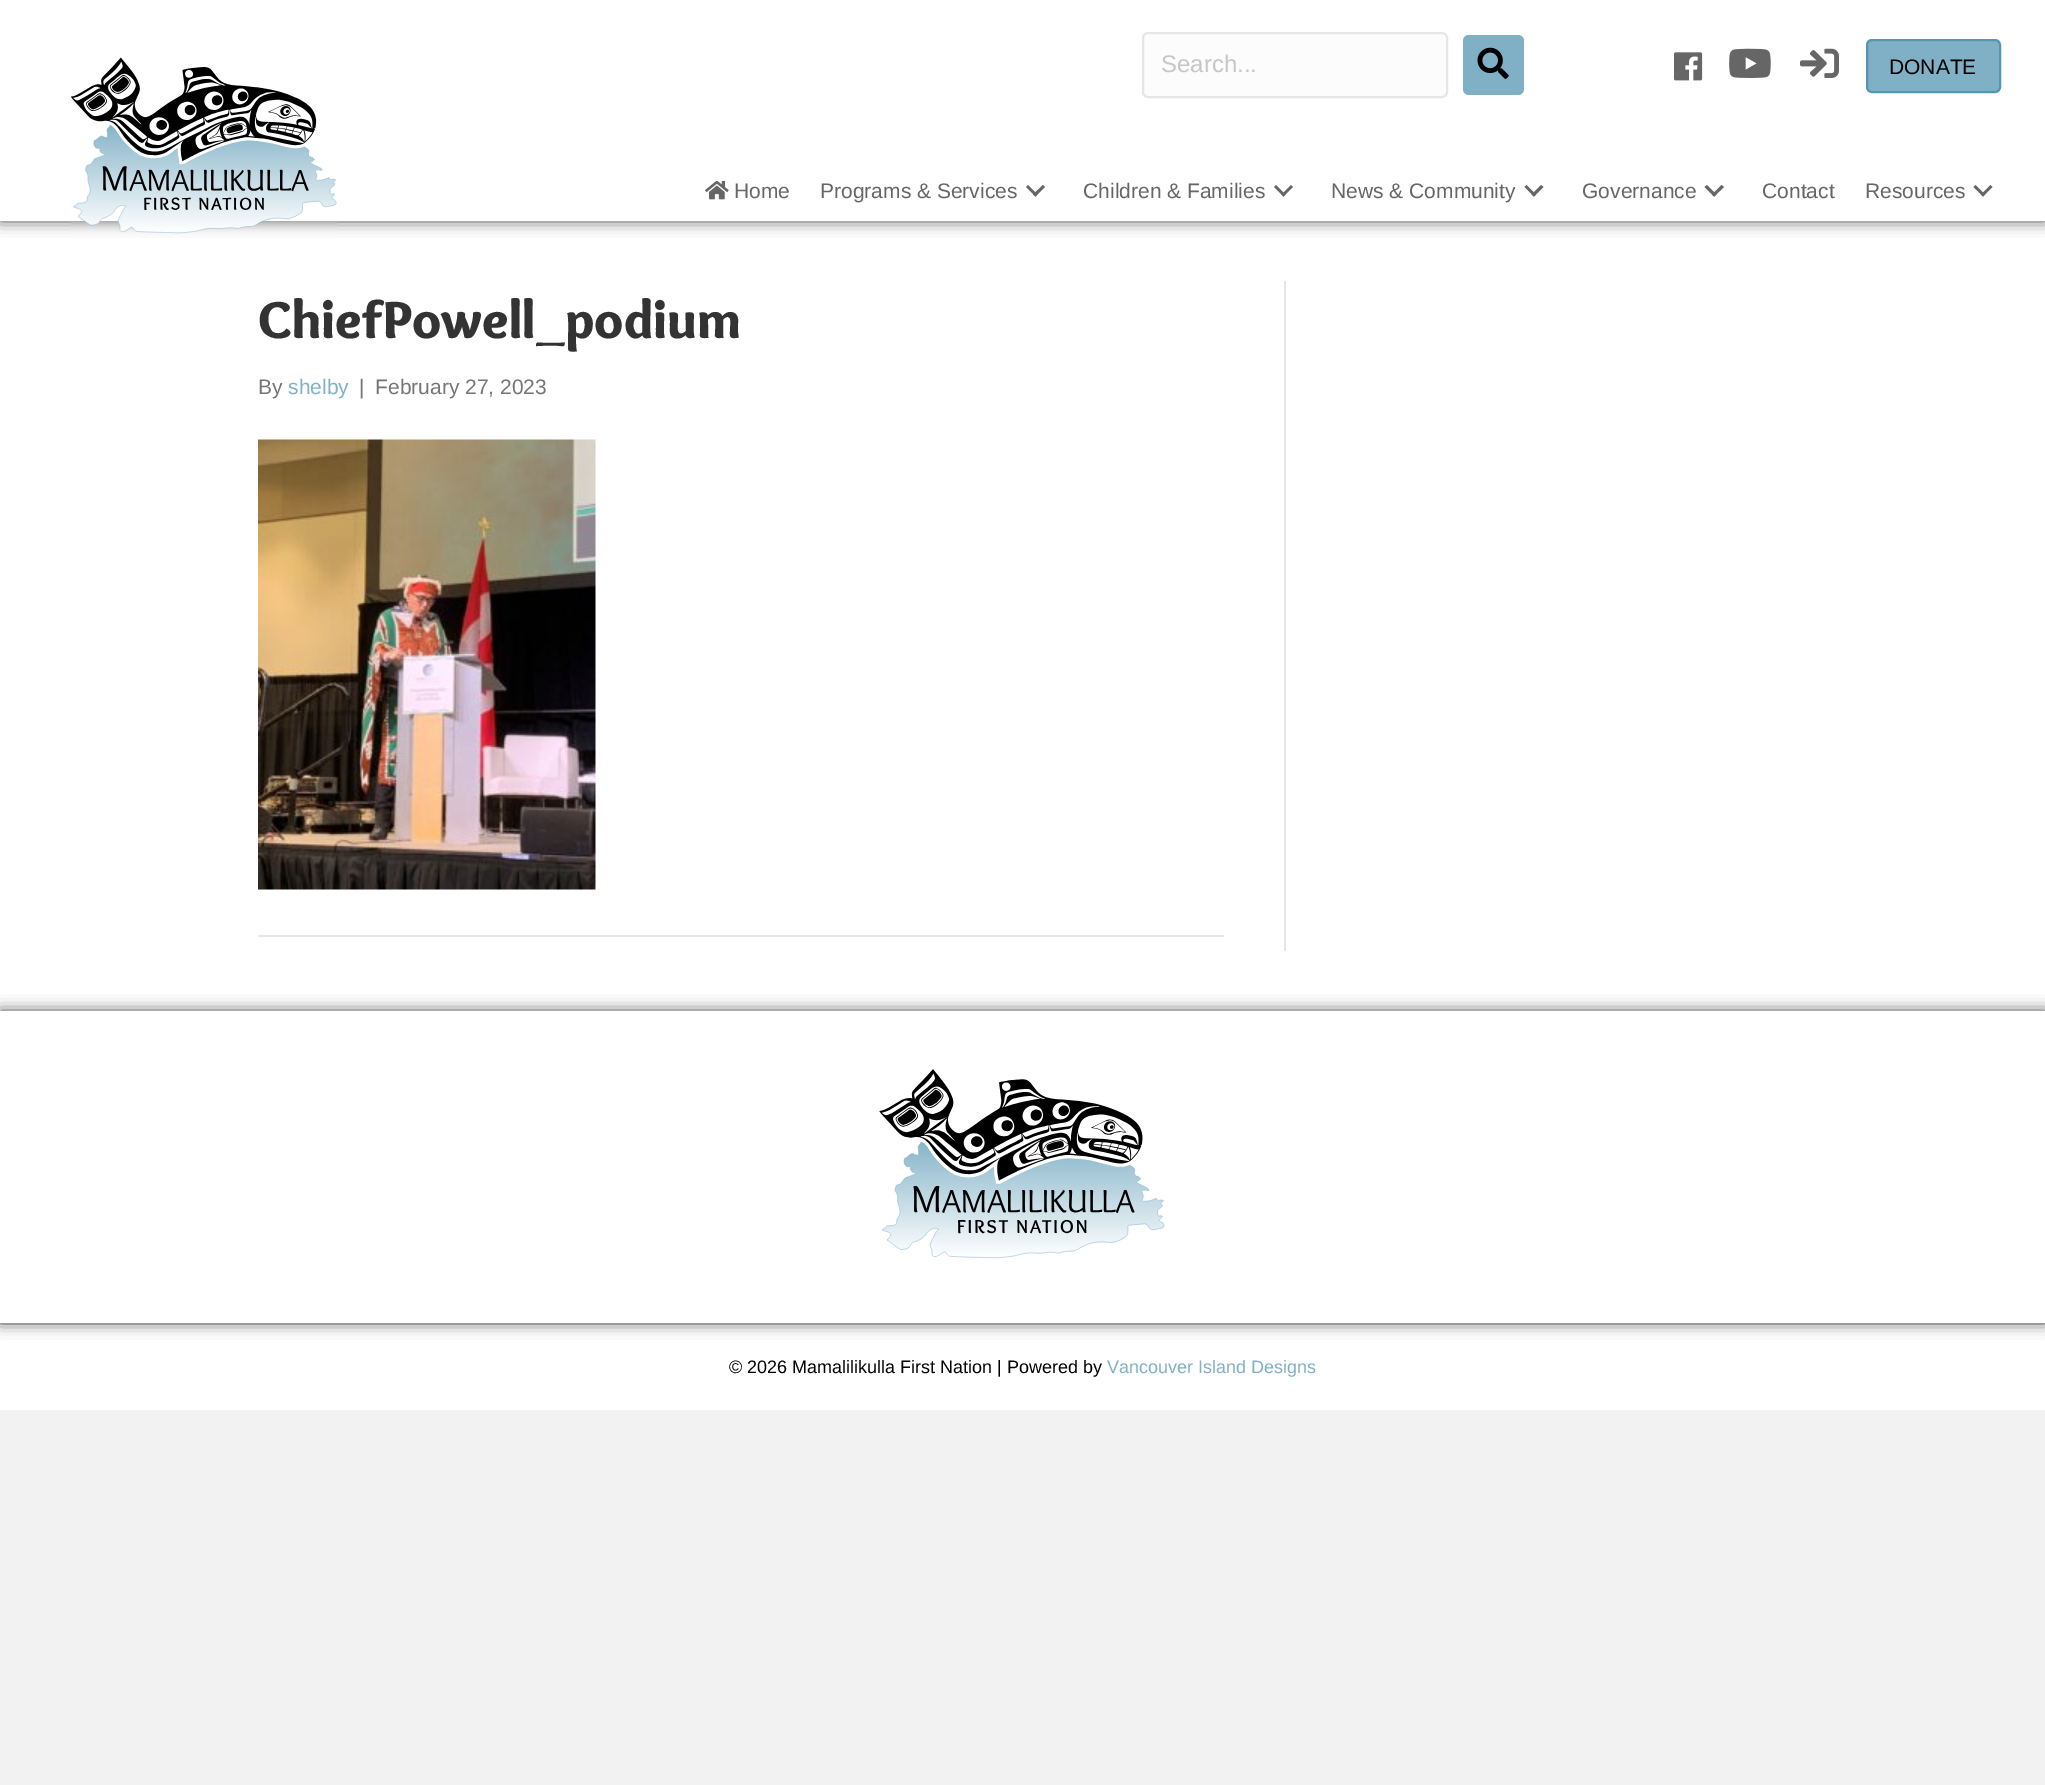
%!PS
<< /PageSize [2045 1785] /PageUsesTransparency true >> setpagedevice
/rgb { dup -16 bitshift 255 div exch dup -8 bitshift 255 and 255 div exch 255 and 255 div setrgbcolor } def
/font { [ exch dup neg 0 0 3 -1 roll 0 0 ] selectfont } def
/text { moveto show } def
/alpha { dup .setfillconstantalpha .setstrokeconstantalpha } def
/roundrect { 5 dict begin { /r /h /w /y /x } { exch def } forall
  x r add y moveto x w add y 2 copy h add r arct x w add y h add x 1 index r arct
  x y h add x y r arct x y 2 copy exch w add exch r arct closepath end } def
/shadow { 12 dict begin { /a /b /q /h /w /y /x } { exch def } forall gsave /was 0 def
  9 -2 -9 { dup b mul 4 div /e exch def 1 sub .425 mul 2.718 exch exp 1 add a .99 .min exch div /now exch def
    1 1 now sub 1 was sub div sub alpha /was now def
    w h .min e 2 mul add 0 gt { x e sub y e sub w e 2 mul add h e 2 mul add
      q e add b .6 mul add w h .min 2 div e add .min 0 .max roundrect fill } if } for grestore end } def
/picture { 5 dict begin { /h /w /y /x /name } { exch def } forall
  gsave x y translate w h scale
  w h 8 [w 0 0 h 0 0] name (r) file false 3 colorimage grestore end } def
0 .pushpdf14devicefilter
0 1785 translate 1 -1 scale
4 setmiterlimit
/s1 { /LiberationSans-Regular 24 font 16#C6C6C6 rgb } def
/s2 { /LiberationSans-Regular 21 font 16#000000 rgb } def
/s3 { /LiberationSans-Regular 21 font 16#666666 rgb } def
/s4 { /Overlock-Black 54 font 16#333333 rgb } def
/s5 { /LiberationSans-Regular 21 font 16#757575 rgb } def
/s6 { /LiberationSans-Regular 21 font 16#7FB0C6 rgb } def
/s7 { /LiberationSans-Regular 18 font 16#000000 rgb } def
/s8 { /LiberationSans-Regular 18 font 16#7FB0C6 rgb } def
16#F2F2F2 rgb
0 0 2045 1785 rectfill
16#FFFFFF rgb
0 221 2045 790 rectfill
16#000000 rgb
0 0 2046 221 0 7.5 0.66 shadow
16#FFFFFF rgb
0 0 2045 221 rectfill
(pic1.raw) 71 57 266 177 picture
16#FCFCFC rgb
1143 33 304 64 5 roundrect gsave fill grestore
16#E6E6E6 rgb
2 setlinewidth
stroke
s1
(Search...) 1161 72 text
16#7FB0C6 rgb
1463 35 61 60 6 roundrect fill
(pic2.raw) 1477 47 32 32 picture
(pic3.raw) 1674 52 29 29 picture
(pic4.raw) 1729 48 42 30 picture
(pic5.raw) 1800 48 39 30 picture
1867 40 133 52 5 roundrect gsave fill grestore
16#5596B3 rgb
stroke
s2
(DONATE) 1889 74 text
(pic6.raw) 705 180 24 20 picture
s3
(Home) 734 198 text
(Programs & Services) 820 198 text
1043 185 moveto 1045 187 lineto 1035.5 196.5 lineto 1033 194.5 lineto closepath fill
1028 185 moveto 1037.5 194.5 lineto 1035.5 196.5 lineto 1026 187 lineto closepath fill
(Children & Families) 1083 198 text
1291 185 moveto 1293 187 lineto 1283.5 196.5 lineto 1281.5 194.5 lineto closepath fill
1276 185 moveto 1285.5 194.5 lineto 1283.5 196.5 lineto 1274 187 lineto closepath fill
(News & Community) 1331 198 text
1541 185 moveto 1543.5 187 lineto 1534 196.5 lineto 1531.5 194.5 lineto closepath fill
1526.5 185 moveto 1536 194.5 lineto 1534 196.5 lineto 1524.5 187 lineto closepath fill
(Governance) 1582 198 text
1721.5 185 moveto 1724 187 lineto 1714 196.5 lineto 1712 194.5 lineto closepath fill
1707 185 moveto 1716.5 194.5 lineto 1714 196.5 lineto 1704.5 187 lineto closepath fill
(Contact) 1762 198 text
(Resources) 1865 198 text
1990.5 185 moveto 1992.5 187 lineto 1983 196.5 lineto 1981 194.5 lineto closepath fill
1975.5 185 moveto 1985 194.5 lineto 1983 196.5 lineto 1973.5 187 lineto closepath fill
16#E6E6E6 rgb
1284 281 2 670 rectfill
s4
(ChiefPowell_podium) 258 338 text
s5
(By) 258 394 text
s6
(shelby) 288 394 text
s5
(|) 359 394 text
(February 27, 2023) 375 394 text
(pic7.raw) 258 439 338 451 picture
16#E6E6E6 rgb
258 935 966 2 rectfill
16#FFFFFF rgb
0 1325 2045 85 rectfill
16#E6E6E6 rgb
0 1323 2045 2 rectfill
16#000000 rgb
0 1011 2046 312 0 7.5 0.66 shadow
16#FFFFFF rgb
0 1011 2045 312 rectfill
(pic8.raw) 879 1069 286 190 picture
s7
(© 2026 Mamalilikulla First Nation | Powered by) 729 1373 text
s8
(Vancouver Island Designs) 1107 1373 text
.poppdf14devicefilter showpage
